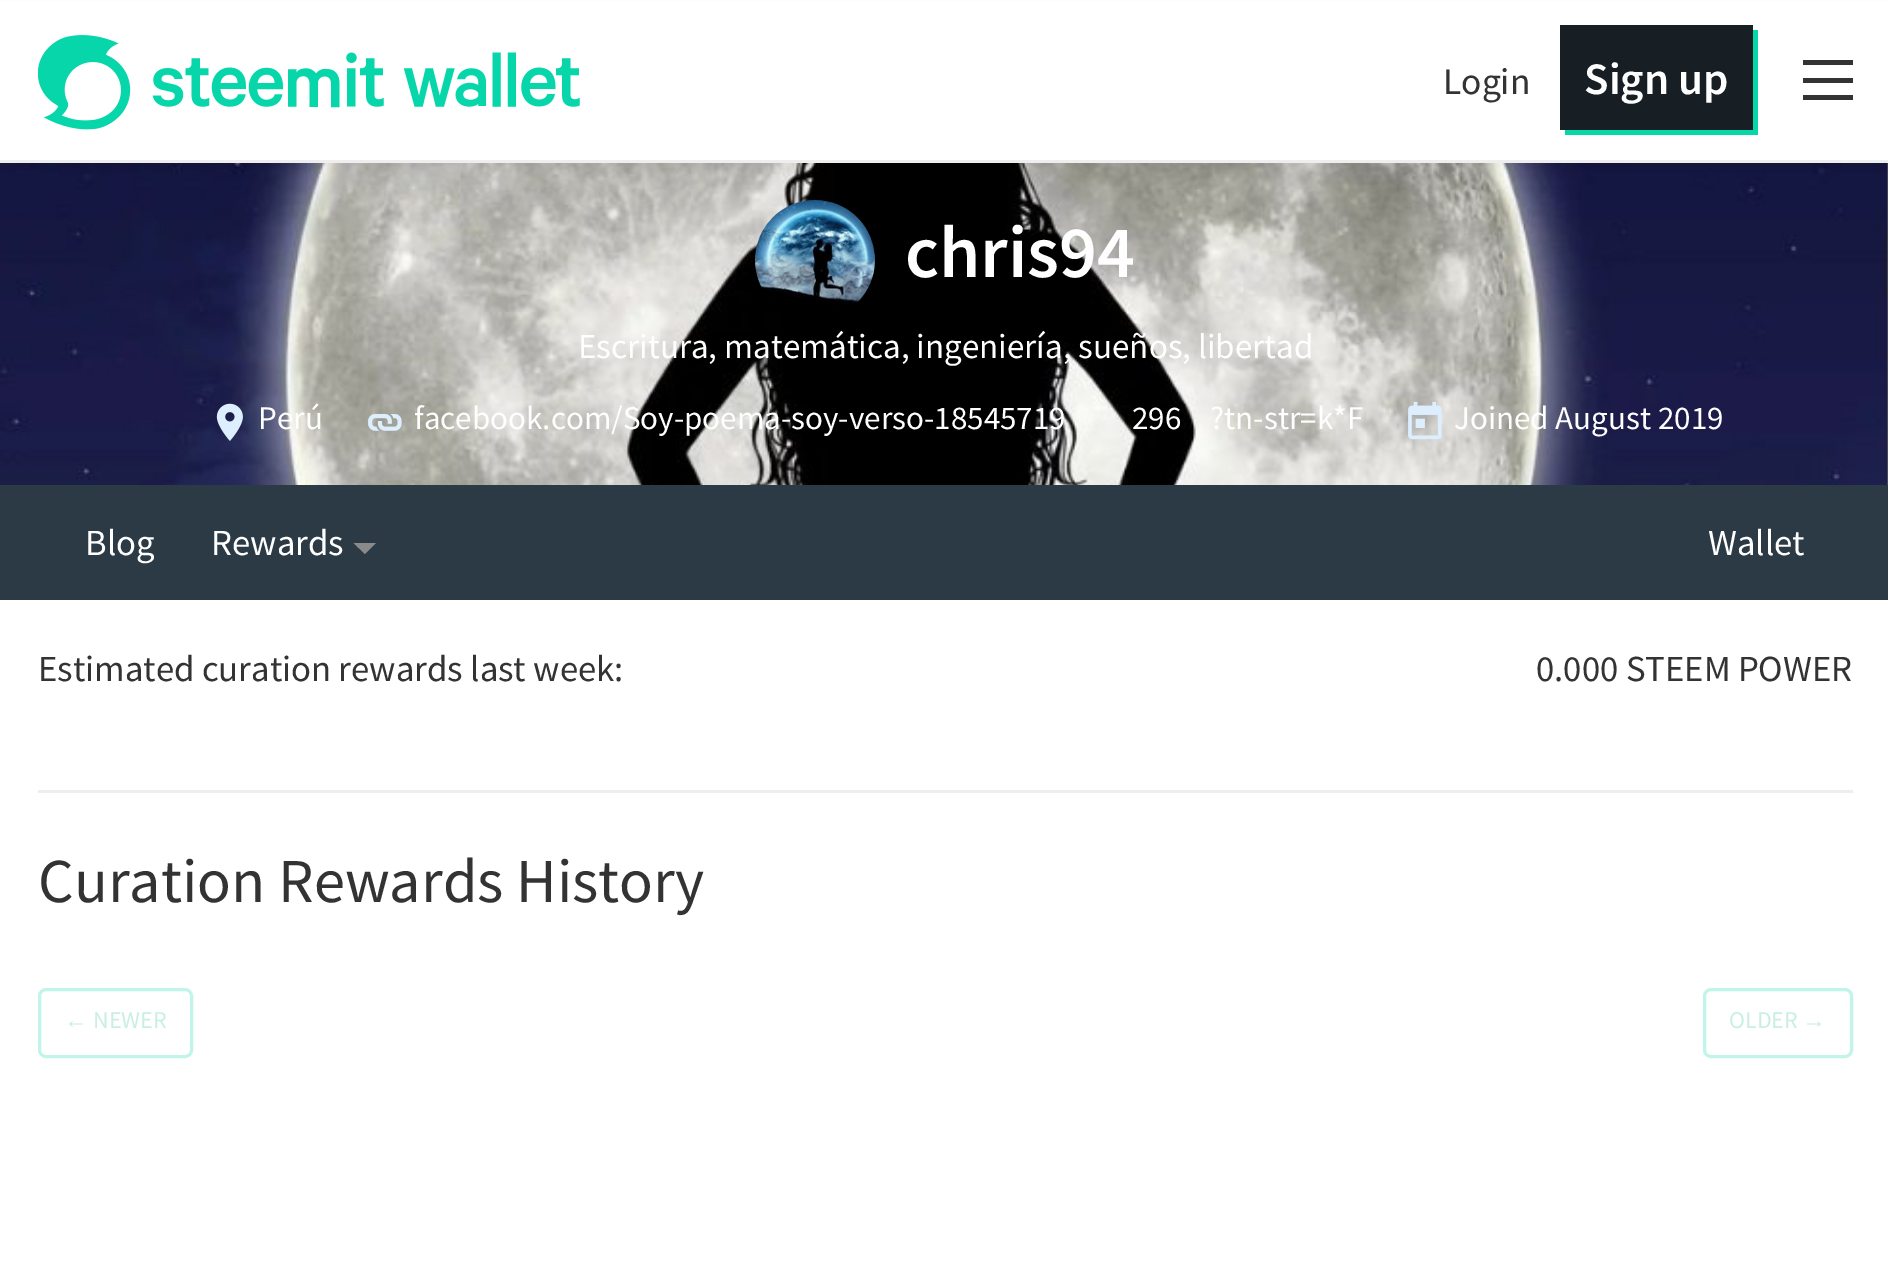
%!PS
<< /PageSize [1888 1278] /PageUsesTransparency true >> setpagedevice
/rgb { dup -16 bitshift 255 div exch dup -8 bitshift 255 and 255 div exch 255 and 255 div setrgbcolor } def
/font { [ exch dup neg 0 0 3 -1 roll 0 0 ] selectfont } def
/text { moveto show } def
/alpha { dup .setfillconstantalpha .setstrokeconstantalpha } def
/roundrect { 5 dict begin { /r /h /w /y /x } { exch def } forall
  x r add y moveto x w add y 2 copy h add r arct x w add y h add x 1 index r arct
  x y h add x y r arct x y 2 copy exch w add exch r arct closepath end } def
/shadow { 12 dict begin { /a /b /q /h /w /y /x } { exch def } forall gsave /was 0 def
  9 -2 -9 { dup b mul 4 div /e exch def 1 sub .425 mul 2.718 exch exp 1 add a .99 .min exch div /now exch def
    1 1 now sub 1 was sub div sub alpha /was now def
    w h .min e 2 mul add 0 gt { x e sub y e sub w e 2 mul add h e 2 mul add
      q e add b .6 mul add w h .min 2 div e add .min 0 .max roundrect fill } if } for grestore end } def
/picture { 5 dict begin { /h /w /y /x /name } { exch def } forall
  gsave x y translate w h scale
  w h 8 [w 0 0 h 0 0] name (r) file false 3 colorimage grestore end } def
0 .pushpdf14devicefilter
0 1278 translate 1 -1 scale
4 setmiterlimit
/s1 { /SourceSansPro-Regular 37.5 font 16#333333 rgb } def
/s2 { /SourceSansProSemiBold-SemiBold 45 font 16#FEFEFE rgb } def
/s3 { /SourceSansProSemiBold-SemiBold 74 font 16#FEFEFE rgb } def
/s4 { /SourceSansPro-Regular 35 font 16#FEFEFE rgb } def
/s5 { /SourceSansPro-Regular 33.1 font 16#FEFEFE rgb } def
/s6 { /SourceSansPro-Regular 36.75 font 16#FEFEFE rgb } def
/s7 { /SourceSansPro-Regular 36.75 font 16#333333 rgb } def
/s8 { /SourceSansPro-Regular 62.5 font 16#333333 rgb } def
/s9 { /LiberationSans-Regular 24 font 16#C7EFE3 rgb } def
/s10 { /SourceSansPro-Regular 24 font 16#C7EFE3 rgb } def
16#FFFFFF rgb
0 0 1888 1278 rectfill
(pic2.raw) 0 163 1888 322 picture
16#000000 rgb
0 5 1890 163 0 5 0.05 shadow
16#FFFFFF rgb
0 1 1888 159 rectfill
16#EEEEEE rgb
0 160 1888 3 rectfill
(pic1.raw) 38 35 542 95 picture
s1
(Login) 1443 94 text
16#06D6A9 rgb
1565 130 moveto 1565 135 lineto 1758 135 lineto 1758 30 lineto 1752 30 lineto 1752 130 lineto closepath fill
16#171F24 rgb
1560 25 193 105 rectfill
s2
(Sign up) 1584 94 text
16#333333 rgb
1803 95 50 5 rectfill
1803 78 50 5 rectfill
1803 60 50 5 rectfill
(pic3.raw) 755 200 120 105 picture
s3
(chris94) 905 277 text
s4
(Escritura, matemática, ingeniería, sueños, libertad) 578 358 text
(pic4.raw) 216 403 27 38 picture
s5
(Perú) 258 429 text
(pic5.raw) 368 414 34 17 picture
(facebook.com/Soy-poema-soy-verso-18545719) 414 429 text
(296) 1132 429 text
(?tn-str=k*F) 1210 429 text
(pic6.raw) 1408 401 34 39 picture
(Joined August 2019) 1454 429 text
16#2C3A45 rgb
0 485 1888 115 rectfill
s6
(Blog) 85 555 text
(Rewards) 211 555 text
16#8A8A8A rgb
353.5 543 moveto 365 554 lineto 376 543 lineto closepath fill
s6
(Wallet) 1708 555 text
s7
(Estimated curation rewards last week:) 38 681 text
(0.000 STEEM POWER) 1536 681 text
16#EEEEEE rgb
38 790 1815 3 rectfill
s8
(Curation Rewards History) 38 902 text
16#C1F5EA rgb
3 setlinewidth
39.5 989.5 152 67 6.5 roundrect stroke
s9
(←) 64 1028 text
s10
(NEWER) 93 1028 text
16#C1F5EA rgb
1704.5 989.5 147 67 6.5 roundrect stroke
s10
(OLDER) 1729 1028 text
s9
(→) 1802 1028 text
.poppdf14devicefilter showpage
